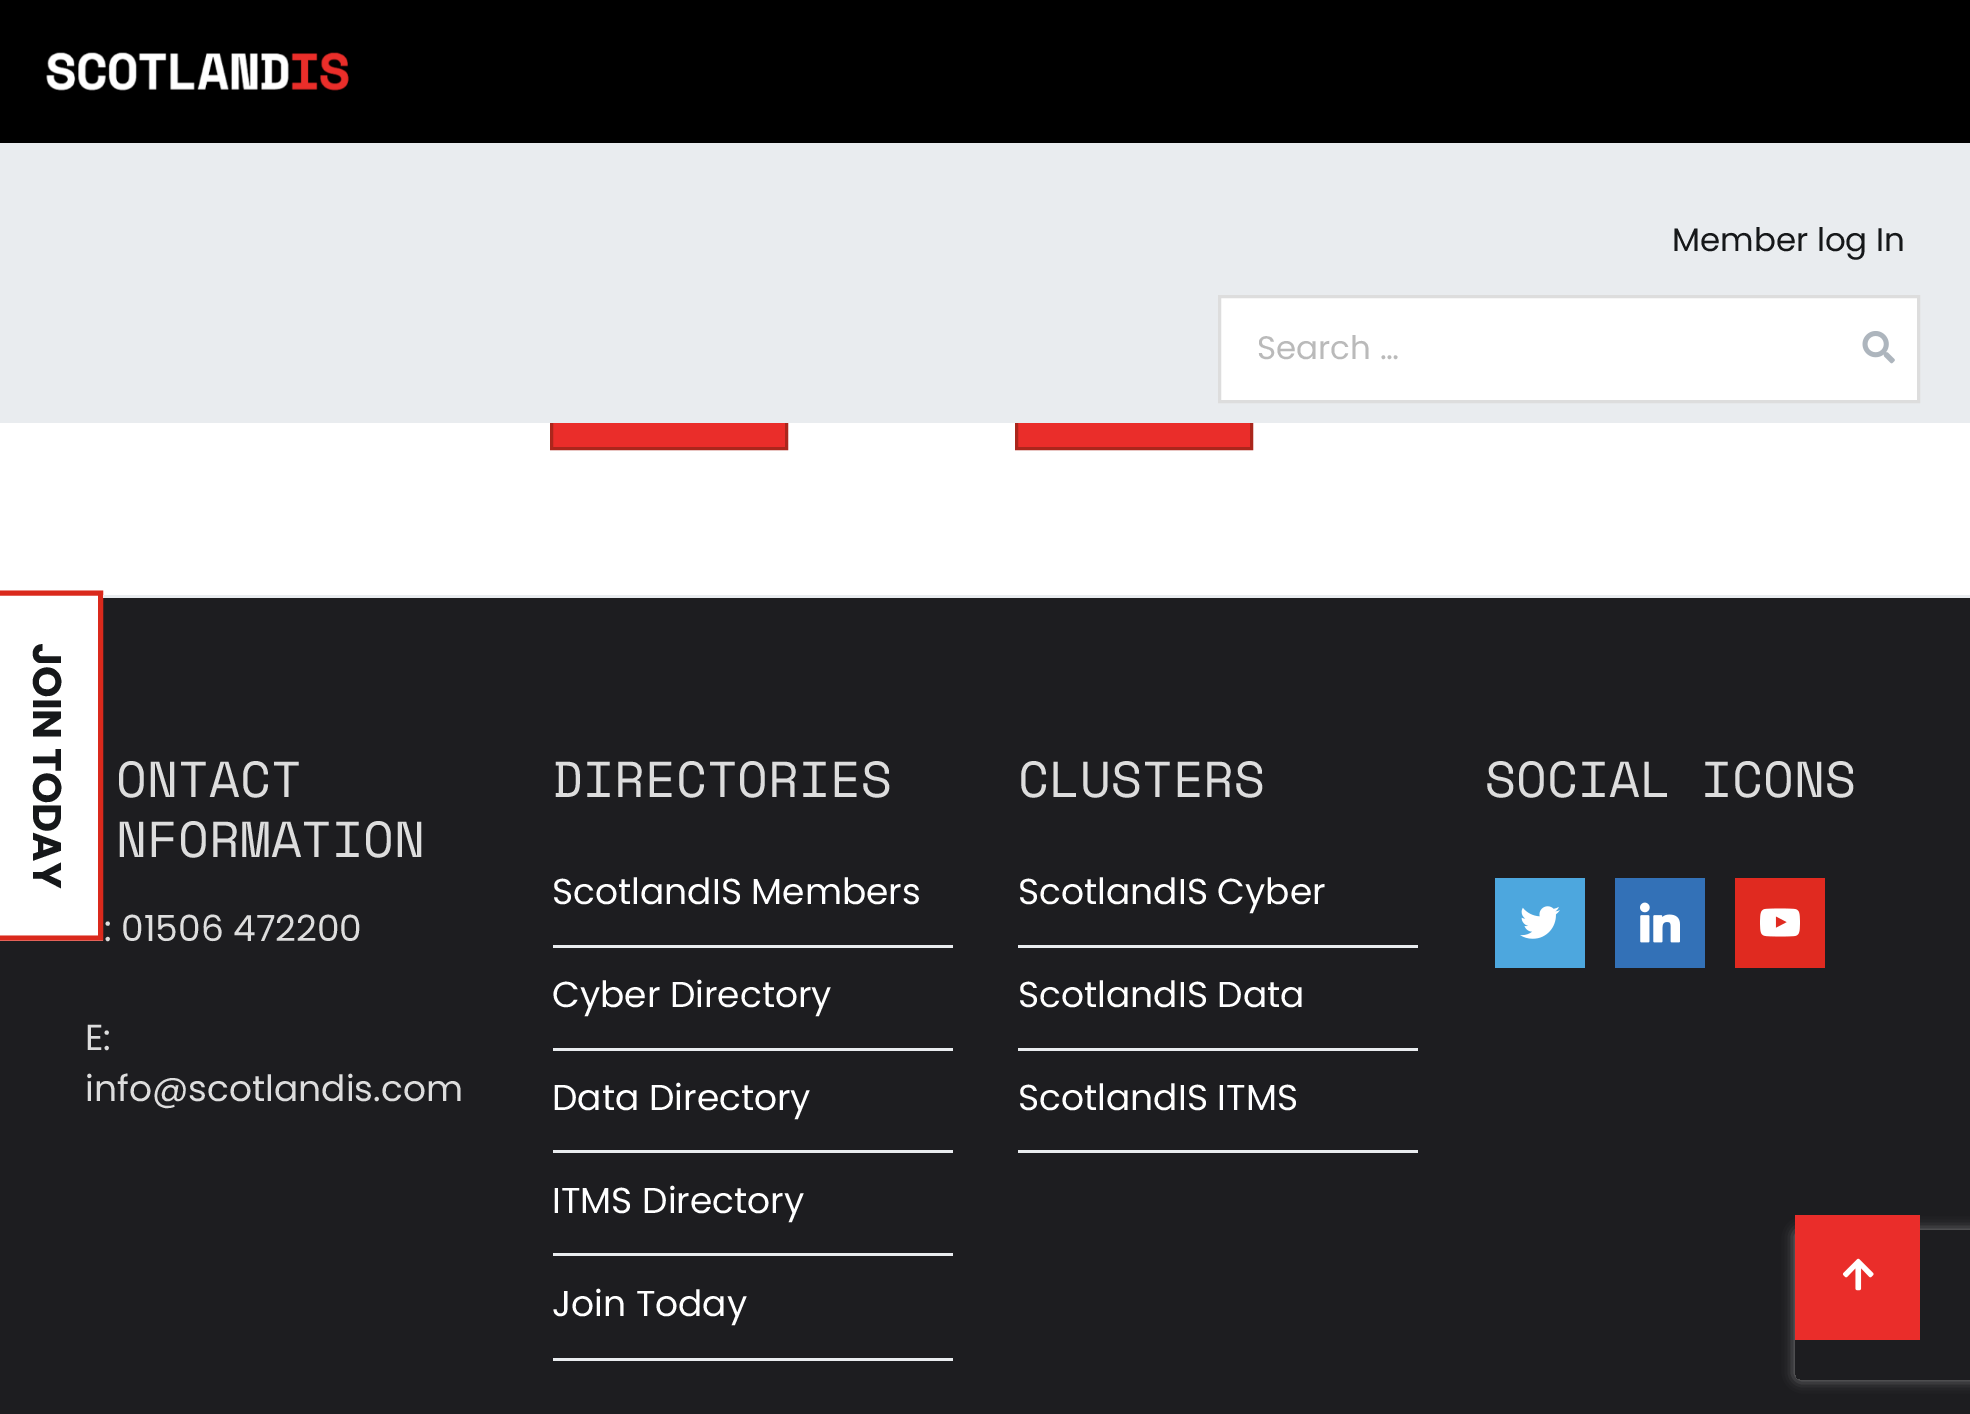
%!PS
<< /PageSize [1970 1414] /PageUsesTransparency true >> setpagedevice
/rgb { dup -16 bitshift 255 div exch dup -8 bitshift 255 and 255 div exch 255 and 255 div setrgbcolor } def
/font { [ exch dup neg 0 0 3 -1 roll 0 0 ] selectfont } def
/text { moveto show } def
/alpha { dup .setfillconstantalpha .setstrokeconstantalpha } def
/roundrect { 5 dict begin { /r /h /w /y /x } { exch def } forall
  x r add y moveto x w add y 2 copy h add r arct x w add y h add x 1 index r arct
  x y h add x y r arct x y 2 copy exch w add exch r arct closepath end } def
/shadow { 12 dict begin { /a /b /q /h /w /y /x } { exch def } forall gsave /was 0 def
  9 -2 -9 { dup b mul 4 div /e exch def 1 sub .425 mul 2.718 exch exp 1 add a .99 .min exch div /now exch def
    1 1 now sub 1 was sub div sub alpha /was now def
    w h .min e 2 mul add 0 gt { x e sub y e sub w e 2 mul add h e 2 mul add
      q e add b .6 mul add w h .min 2 div e add .min 0 .max roundrect fill } if } for grestore end } def
/picture { 5 dict begin { /h /w /y /x /name } { exch def } forall
  gsave x y translate w h scale
  w h 8 [w 0 0 h 0 0] name (r) file false 3 colorimage grestore end } def
0 .pushpdf14devicefilter
0 1414 translate 1 -1 scale
4 setmiterlimit
/s1 { /Poppins-Regular 32.5 font 16#16181A rgb } def
/s2 { /Poppins-Regular 32.5 font 16#BABABA rgb } def
/s3 { /SpaceMono-Regular 50.5 font 16#DDDDDD rgb } def
/s4 { /Poppins-Regular 36 font 16#DDDDDD rgb } def
/s5 { /Poppins-Regular 36 font 16#FFFFFF rgb } def
16#FFFFFF rgb
0 0 1970 1414 rectfill
16#000000 rgb
0 0 1970 143 rectfill
(pic1.raw) 46 52 303 39 picture
16#EA2D2A rgb
553 423 232 24 rectfill
16#AB261C rgb
3 setlinewidth
551.5 361.5 235 87 rectstroke
16#EA2D2A rgb
1018 423 232 24 rectfill
16#AB261C rgb
1016.5 361.5 235 87 rectstroke
16#E9ECEF rgb
0 143 1970 280 rectfill
s1
(Member log In) 1672 251 text
16#FFFFFF rgb
1219.5 296.5 moveto 1918.5 296.5 lineto 1918.5 401.5 lineto 1219.5 401.5 lineto closepath gsave fill grestore
16#DDDDDD rgb
stroke
s2
(Search …) 1257 359 text
(pic2.raw) 1862 331 33 33 picture
16#1D1D20 rgb
0 598 1970 816 rectfill
16#FFFFFF rgb
0 598 103 343 rectfill
16#DA291C rgb
5 setlinewidth
100.5 593 moveto 100.5 938 lineto -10.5 938 lineto -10.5 593 lineto closepath stroke
/Poppins-Bold 40 font
16#16181A rgb
gsave 33 643 translate 90 rotate 0 0 moveto (JOIN TODAY) show grestore
16#E9ECEF rgb
103 595 1867 3 rectfill
s3
(ONTACT) 116 797 text
(NFORMATION) 116 857 text
s4
(: 01506 472200) 104 941 text
(E:) 85 1050 text
(info@scotlandis.com) 85 1101 text
s3
(DIRECTORIES) 552 797 text
16#E9ECEF rgb
553 945 400 3 rectfill
s5
(ScotlandIS Members) 552 904 text
16#E9ECEF rgb
553 1048 400 3 rectfill
s5
(Cyber Directory) 552 1007 text
16#E9ECEF rgb
553 1150 400 3 rectfill
s5
(Data Directory) 552 1110 text
16#E9ECEF rgb
553 1253 400 3 rectfill
s5
(ITMS Directory) 552 1213 text
16#E9ECEF rgb
553 1358 400 3 rectfill
s5
(Join Today) 552 1316 text
s3
(CLUSTERS) 1018 797 text
16#E9ECEF rgb
1018 945 400 3 rectfill
s5
(ScotlandIS Cyber) 1018 904 text
16#E9ECEF rgb
1018 1048 400 3 rectfill
s5
(ScotlandIS Data) 1018 1007 text
16#E9ECEF rgb
1018 1150 400 3 rectfill
s5
(ScotlandIS ITMS) 1018 1110 text
s3
(SOCIAL ICONS) 1485 797 text
16#4DA7DE rgb
1495 878 90 90 rectfill
(pic3.raw) 1520 906 40 33 picture
16#3371B7 rgb
1615 878 90 90 rectfill
(pic4.raw) 1640 902 40 41 picture
16#E02A20 rgb
1735 878 90 90 rectfill
(pic5.raw) 1760 908 40 29 picture
gsave
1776 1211 moveto 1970 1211 lineto 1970 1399 lineto 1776 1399 lineto closepath 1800 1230 moveto 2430 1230 lineto 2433 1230 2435 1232 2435 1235 curveto 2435 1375 lineto 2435 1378 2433 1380 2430 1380 curveto 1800 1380 lineto 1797 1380 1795 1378 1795 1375 curveto 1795 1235 lineto 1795 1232 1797 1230 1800 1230 curveto closepath eoclip newpath
16#808080 rgb
1795 1230 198 150 5 6 1 shadow
grestore
16#EA2D2A rgb
1795 1215 125 125 rectfill
(pic6.raw) 1842 1258 32 33 picture
.poppdf14devicefilter showpage
